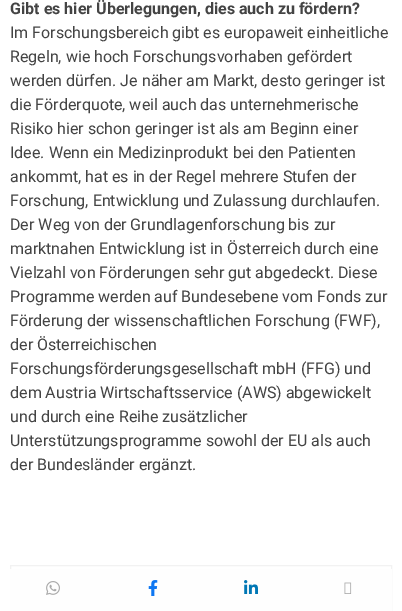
%!PS
<< /PageSize [402 611] >> setpagedevice
/rgb { dup -16 bitshift 255 div exch dup -8 bitshift 255 and 255 div exch 255 and 255 div setrgbcolor } def
/font { [ exch dup neg 0 0 3 -1 roll 0 0 ] selectfont } def
/text { moveto show } def
/picture { 5 dict begin { /h /w /y /x /name } { exch def } forall
  gsave x y translate w h scale
  w h 8 [w 0 0 h 0 0] name (r) file false 3 colorimage grestore end } def
0 611 translate 1 -1 scale
4 setmiterlimit
/s1 { /Roboto-Bold 16 font 16#444444 rgb } def
/s2 { /Roboto-Regular 16 font 16#444444 rgb } def
16#FFFFFF rgb
0 0 402 611 rectfill
s1
(Gibt es hier Überlegungen, dies auch zu fördern?) 10 14 text
s2
(Im Forschungsbereich gibt es europaweit einheitliche) 10 38 text
(Regeln, wie hoch Forschungsvorhaben gefördert) 10 62 text
(werden dürfen. Je näher am Markt, desto geringer ist) 10 86 text
(die Förderquote, weil auch das unternehmerische) 10 110 text
(Risiko hier schon geringer ist als am Beginn einer) 10 134 text
(Idee. Wenn ein Medizinprodukt bei den Patienten) 10 158 text
(ankommt, hat es in der Regel mehrere Stufen der) 10 182 text
(Forschung, Entwicklung und Zulassung durchlaufen.) 10 206 text
(Der Weg von der Grundlagenforschung bis zur) 10 230 text
(marktnahen Entwicklung ist in Österreich durch eine) 10 254 text
(Vielzahl von Förderungen sehr gut abgedeckt. Diese) 10 278 text
(Programme werden auf Bundesebene vom Fonds zur) 10 302 text
(Förderung der wissenschaftlichen Forschung \(FWF\),) 10 326 text
(der Österreichischen) 10 350 text
(Forschungsförderungsgesellschaft mbH \(FFG\) und) 10 374 text
(dem Austria Wirtschaftsservice \(AWS\) abgewickelt) 10 398 text
(und durch eine Reihe zusätzlicher) 10 422 text
(Unterstützungsprogramme sowohl der EU als auch) 10 446 text
(der Bundesländer ergänzt.) 10 470 text
16#F2F2F2 rgb
10.5 565.5 381 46 rectstroke
16#FEFEFE rgb
10 569 382 42 rectfill
(pic1.raw) 46 581 14 14 picture
(pic2.raw) 148 580 10 16 picture
(pic3.raw) 244 580 14 14 picture
(pic4.raw) 344 582 8 12 picture
showpage
